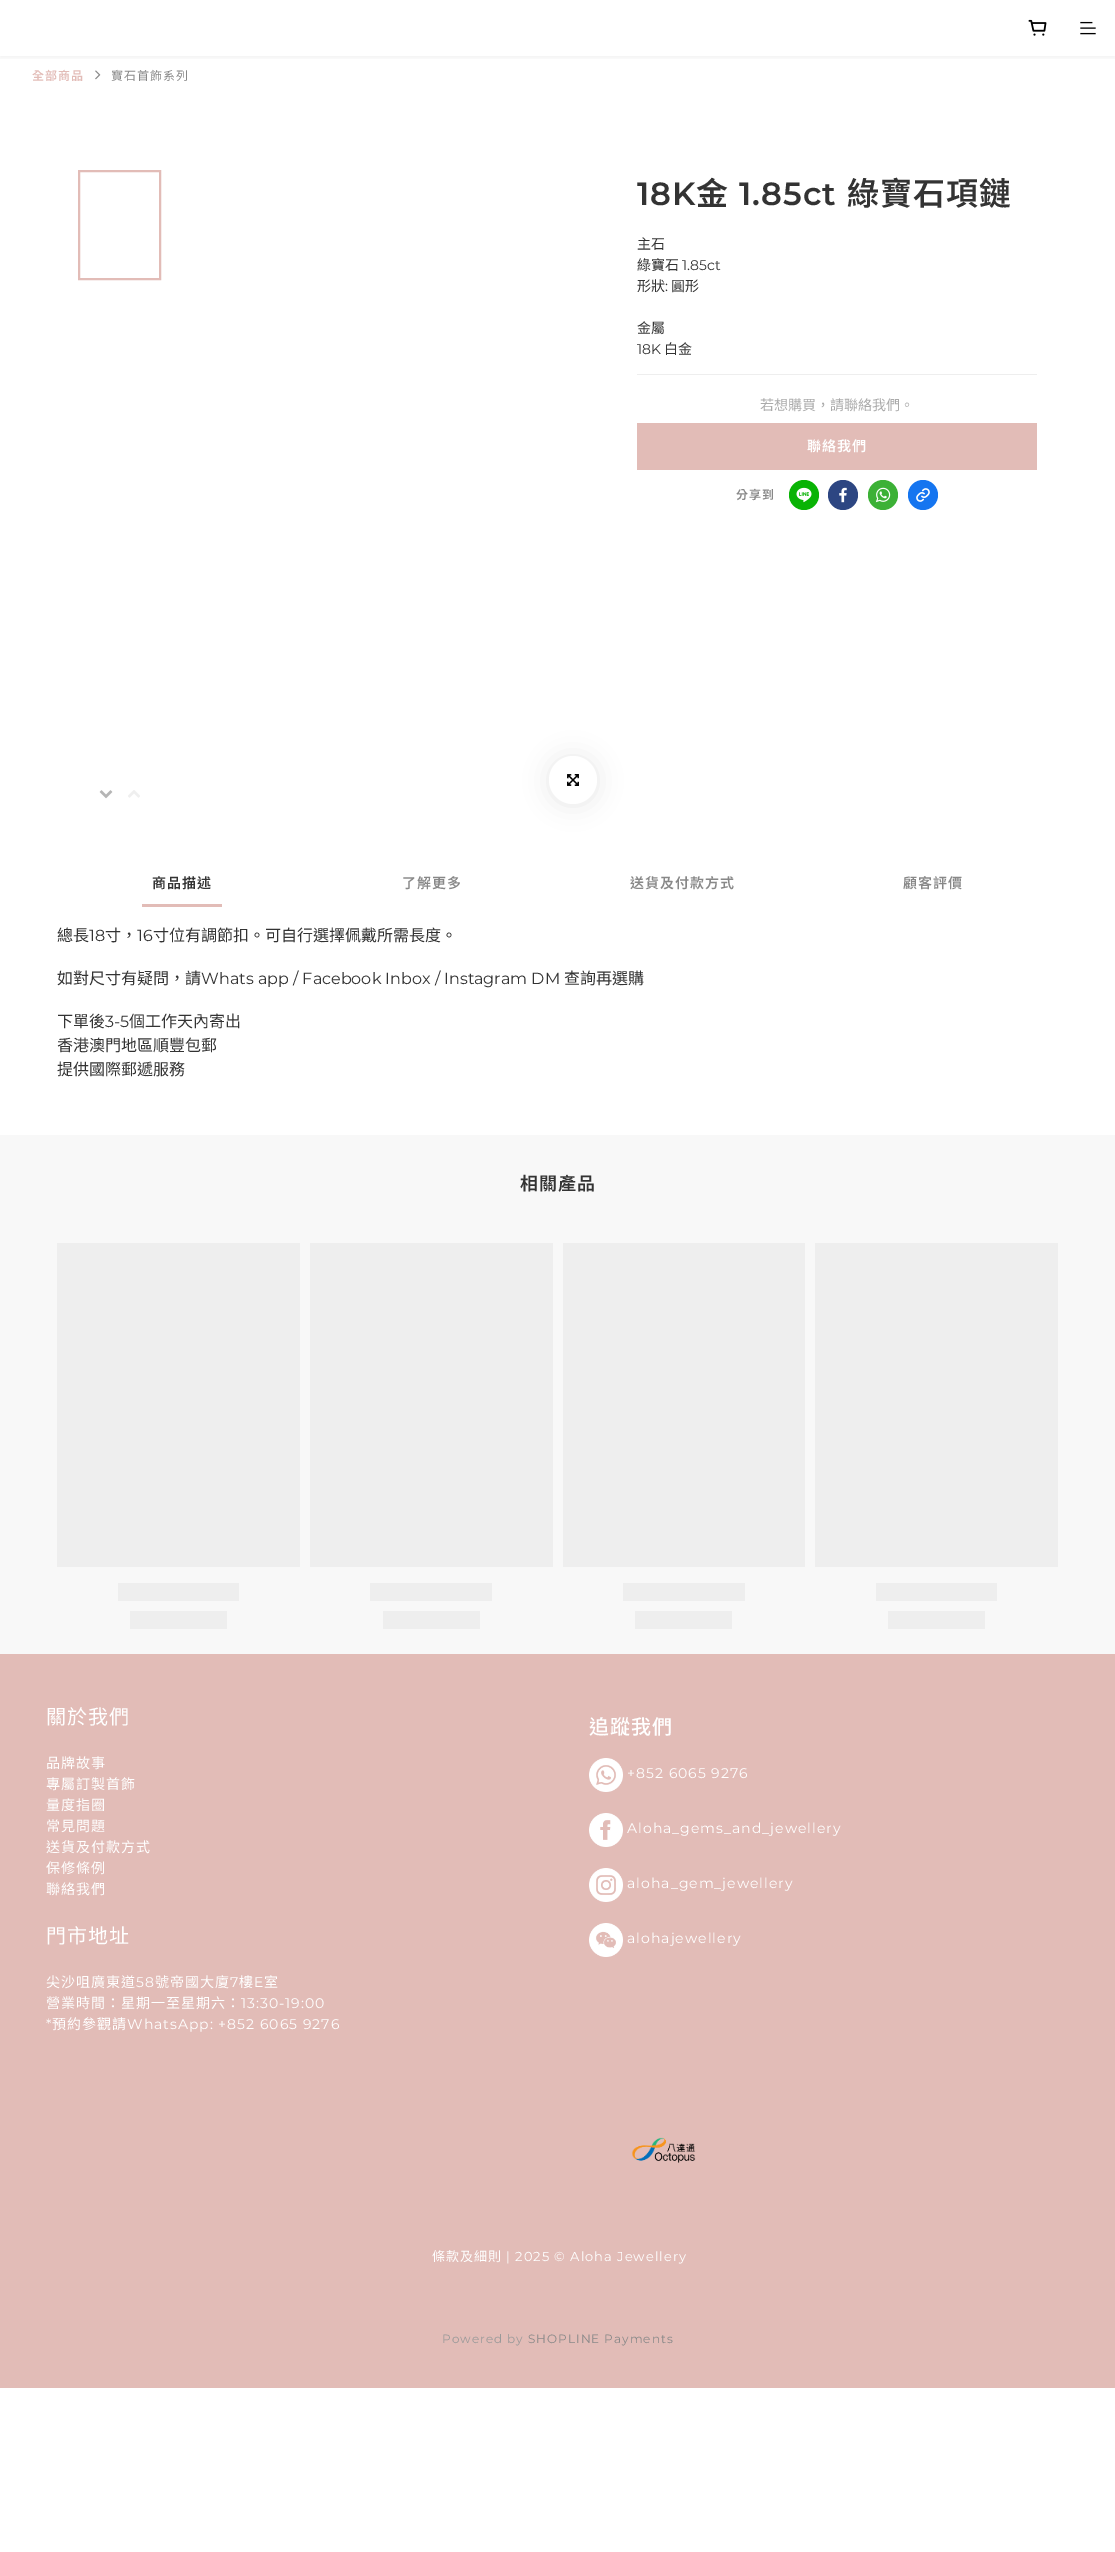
%!PS
<< /PageSize [1115 2552] /PageUsesTransparency true >> setpagedevice
/rgb { dup -16 bitshift 255 div exch dup -8 bitshift 255 and 255 div exch 255 and 255 div setrgbcolor } def
/font { [ exch dup neg 0 0 3 -1 roll 0 0 ] selectfont } def
/text { moveto show } def
/alpha { dup .setfillconstantalpha .setstrokeconstantalpha } def
/circle { newpath 0 360 arc closepath } def
/roundrect { 5 dict begin { /r /h /w /y /x } { exch def } forall
  x r add y moveto x w add y 2 copy h add r arct x w add y h add x 1 index r arct
  x y h add x y r arct x y 2 copy exch w add exch r arct closepath end } def
/shadow { 12 dict begin { /a /b /q /h /w /y /x } { exch def } forall gsave /was 0 def
  9 -2 -9 { dup b mul 4 div /e exch def 1 sub .425 mul 2.718 exch exp 1 add a .99 .min exch div /now exch def
    1 1 now sub 1 was sub div sub alpha /was now def
    w h .min e 2 mul add 0 gt { x e sub y e sub w e 2 mul add h e 2 mul add
      q e add b .6 mul add w h .min 2 div e add .min 0 .max roundrect fill } if } for grestore end } def
/picture { 5 dict begin { /h /w /y /x /name } { exch def } forall
  gsave x y translate w h scale
  w h 8 [w 0 0 h 0 0] name (r) file false 3 colorimage grestore end } def
0 .pushpdf14devicefilter
0 2552 translate 1 -1 scale
4 setmiterlimit
/s1 { /NotoSansTC-Regular 14 font 16#333333 rgb } def
/s2 { /Montserrat-Regular 14 font 16#333333 rgb } def
/s3 { /NotoSansTC-Regular 14 font 16#AAAAAA rgb } def
/s4 { /NotoSansTC-Regular 16 font 16#333333 rgb } def
/s5 { /Montserrat-Regular 16 font 16#333333 rgb } def
16#FFFFFF rgb
0 0 1115 2552 rectfill
gsave
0 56 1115 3 rectclip
16#000000 rgb
0 2 1115 56 0 3 0.06 shadow
grestore
(pic1.raw) 1028 19 19 17 picture
(pic2.raw) 1080 21 16 14 picture
/NotoSansTC-SemiBold 12 font
16#E2BCB7 rgb
32 80 moveto 1 0 (全部商品) ashow
(pic3.raw) 95 70 6 10 picture
/NotoSansTC-Regular 12 font
16#888888 rgb
111 80 moveto 1 0 (寶石首飾系列) ashow
16#E2BCB7 rgb
2 setlinewidth
79 171 81 108 rectstroke
(pic4.raw) 99 790 14 9 picture
(pic5.raw) 128 790 12 8 picture
16#000000 rgb
549 757 48 48 24 12 0.09 shadow
16#FFFFFF rgb
573 780 24 circle fill
(pic6.raw) 567 774 12 12 picture
/Montserrat-SemiBold 32 font
16#333333 rgb
637 205 moveto 1 0 (18K) ashow
/NotoSansTC-SemiBold 32 font
696 205 moveto 1 0 (金) ashow
/Montserrat-SemiBold 32 font
739 205 moveto 1 0 (1.85ct) ashow
/NotoSansTC-SemiBold 32 font
847 205 moveto 1 0 (綠寶石項鏈) ashow
s1
(主石) 637 249 text
(綠寶石) 637 270 text
s2
(1.85ct) 682 270 text
s1
(形狀) 637 291 text
s2
(:) 665 291 text
s1
(圓形) 671 291 text
(金屬) 637 333 text
s2
(18K) 637 354 text
s1
(白金) 664 354 text
16#EEEEEE rgb
637 374 400 1 rectfill
s3
(若想購買，請聯絡我們。) 760 410 text
16#E2BCB7 rgb
637 423 400 47 rectfill
/NotoSansTC-SemiBold 14 font
16#FFFFFF rgb
807 451 moveto 1 0 (聯絡我們) ashow
/NotoSansTC-SemiBold 12 font
16#888888 rgb
736 499 moveto 1 0 (分享到) ashow
16#09B305 rgb
804 495 15 circle fill
(pic7.raw) 796 487 16 16 picture
16#2D4682 rgb
843 495 15 circle fill
(pic8.raw) 839 487 8 16 picture
16#3CB136 rgb
883 495 15 circle fill
(pic9.raw) 875 487 16 16 picture
16#1575F0 rgb
923 495 15 circle fill
(pic10.raw) 916 488 14 14 picture
/NotoSansTC-SemiBold 14 font
16#333333 rgb
152 888 moveto 1 0 (商品描述) ashow
16#E2BCB7 rgb
142 904 80 3 rectfill
16#888888 rgb
402 888 moveto 1 0 (了解更多) ashow
630 888 moveto 1 0 (送貨及付款方式) ashow
903 888 moveto 1 0 (顧客評價) ashow
s4
(總長) 57 941 text
s5
(18) 89 941 text
s4
(寸，) 105 941 text
s5
(16) 137 941 text
s4
(寸位有調節扣。可自行選擇佩戴所需長度。) 153 941 text
(如對尺寸有疑問，請) 57 984 text
s5
(Whats app / Facebook Inbox / Instagram DM) 201 984 text
s4
(查詢再選購) 564 984 text
(下單後) 57 1027 text
s5
(3-5) 105 1027 text
s4
(個工作天內寄出) 129 1027 text
(香港澳門地區順豐包郵) 57 1051 text
(提供國際郵遞服務) 57 1075 text
16#F8F8F8 rgb
0 1135 1115 519 rectfill
/NotoSansTC-SemiBold 18 font
16#333333 rgb
520 1190 moveto 1 0 (相關產品) ashow
gsave 57 1243 moveto 300 1243 lineto 300 1567 lineto 57 1567 lineto closepath clip newpath
<< /ShadingType 2 /ColorSpace /DeviceRGB /Coords [-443 1405 557 1405] /Extend [true true] /Function << /FunctionType 3 /Domain [0 1] /Functions [<< /FunctionType 2 /Domain [0 1] /C0 [0.933 0.933 0.933] /C1 [0.933 0.933 0.933] /N 1 >> << /FunctionType 2 /Domain [0 1] /C0 [0.933 0.933 0.933] /C1 [0.875 0.875 0.875] /N 1 >> << /FunctionType 2 /Domain [0 1] /C0 [0.875 0.875 0.875] /C1 [0.933 0.933 0.933] /N 1 >> << /FunctionType 2 /Domain [0 1] /C0 [0.933 0.933 0.933] /C1 [0.933 0.933 0.933] /N 1 >>] /Bounds [0.1 0.3 0.5] /Encode [0 1 0 1 0 1 0 1] >> >> shfill grestore
gsave 118 1583 moveto 239 1583 lineto 239 1601 lineto 118 1601 lineto closepath clip newpath
<< /ShadingType 2 /ColorSpace /DeviceRGB /Coords [-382 1592 618 1592] /Extend [true true] /Function << /FunctionType 3 /Domain [0 1] /Functions [<< /FunctionType 2 /Domain [0 1] /C0 [0.933 0.933 0.933] /C1 [0.933 0.933 0.933] /N 1 >> << /FunctionType 2 /Domain [0 1] /C0 [0.933 0.933 0.933] /C1 [0.875 0.875 0.875] /N 1 >> << /FunctionType 2 /Domain [0 1] /C0 [0.875 0.875 0.875] /C1 [0.933 0.933 0.933] /N 1 >> << /FunctionType 2 /Domain [0 1] /C0 [0.933 0.933 0.933] /C1 [0.933 0.933 0.933] /N 1 >>] /Bounds [0.1 0.3 0.5] /Encode [0 1 0 1 0 1 0 1] >> >> shfill grestore
gsave 130 1611 moveto 227 1611 lineto 227 1629 lineto 130 1629 lineto closepath clip newpath
<< /ShadingType 2 /ColorSpace /DeviceRGB /Coords [-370 1620 630 1620] /Extend [true true] /Function << /FunctionType 3 /Domain [0 1] /Functions [<< /FunctionType 2 /Domain [0 1] /C0 [0.933 0.933 0.933] /C1 [0.933 0.933 0.933] /N 1 >> << /FunctionType 2 /Domain [0 1] /C0 [0.933 0.933 0.933] /C1 [0.875 0.875 0.875] /N 1 >> << /FunctionType 2 /Domain [0 1] /C0 [0.875 0.875 0.875] /C1 [0.933 0.933 0.933] /N 1 >> << /FunctionType 2 /Domain [0 1] /C0 [0.933 0.933 0.933] /C1 [0.933 0.933 0.933] /N 1 >>] /Bounds [0.1 0.3 0.5] /Encode [0 1 0 1 0 1 0 1] >> >> shfill grestore
gsave 310 1243 moveto 553 1243 lineto 553 1567 lineto 310 1567 lineto closepath clip newpath
<< /ShadingType 2 /ColorSpace /DeviceRGB /Coords [-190 1405 810 1405] /Extend [true true] /Function << /FunctionType 3 /Domain [0 1] /Functions [<< /FunctionType 2 /Domain [0 1] /C0 [0.933 0.933 0.933] /C1 [0.933 0.933 0.933] /N 1 >> << /FunctionType 2 /Domain [0 1] /C0 [0.933 0.933 0.933] /C1 [0.875 0.875 0.875] /N 1 >> << /FunctionType 2 /Domain [0 1] /C0 [0.875 0.875 0.875] /C1 [0.933 0.933 0.933] /N 1 >> << /FunctionType 2 /Domain [0 1] /C0 [0.933 0.933 0.933] /C1 [0.933 0.933 0.933] /N 1 >>] /Bounds [0.1 0.3 0.5] /Encode [0 1 0 1 0 1 0 1] >> >> shfill grestore
gsave 370 1583 moveto 492 1583 lineto 492 1601 lineto 370 1601 lineto closepath clip newpath
<< /ShadingType 2 /ColorSpace /DeviceRGB /Coords [-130 1592 870 1592] /Extend [true true] /Function << /FunctionType 3 /Domain [0 1] /Functions [<< /FunctionType 2 /Domain [0 1] /C0 [0.933 0.933 0.933] /C1 [0.933 0.933 0.933] /N 1 >> << /FunctionType 2 /Domain [0 1] /C0 [0.933 0.933 0.933] /C1 [0.875 0.875 0.875] /N 1 >> << /FunctionType 2 /Domain [0 1] /C0 [0.875 0.875 0.875] /C1 [0.933 0.933 0.933] /N 1 >> << /FunctionType 2 /Domain [0 1] /C0 [0.933 0.933 0.933] /C1 [0.933 0.933 0.933] /N 1 >>] /Bounds [0.1 0.3 0.5] /Encode [0 1 0 1 0 1 0 1] >> >> shfill grestore
gsave 383 1611 moveto 480 1611 lineto 480 1629 lineto 383 1629 lineto closepath clip newpath
<< /ShadingType 2 /ColorSpace /DeviceRGB /Coords [-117 1620 883 1620] /Extend [true true] /Function << /FunctionType 3 /Domain [0 1] /Functions [<< /FunctionType 2 /Domain [0 1] /C0 [0.933 0.933 0.933] /C1 [0.933 0.933 0.933] /N 1 >> << /FunctionType 2 /Domain [0 1] /C0 [0.933 0.933 0.933] /C1 [0.875 0.875 0.875] /N 1 >> << /FunctionType 2 /Domain [0 1] /C0 [0.875 0.875 0.875] /C1 [0.933 0.933 0.933] /N 1 >> << /FunctionType 2 /Domain [0 1] /C0 [0.933 0.933 0.933] /C1 [0.933 0.933 0.933] /N 1 >>] /Bounds [0.1 0.3 0.5] /Encode [0 1 0 1 0 1 0 1] >> >> shfill grestore
gsave 563 1243 moveto 805 1243 lineto 805 1567 lineto 563 1567 lineto closepath clip newpath
<< /ShadingType 2 /ColorSpace /DeviceRGB /Coords [63 1405 1063 1405] /Extend [true true] /Function << /FunctionType 3 /Domain [0 1] /Functions [<< /FunctionType 2 /Domain [0 1] /C0 [0.933 0.933 0.933] /C1 [0.933 0.933 0.933] /N 1 >> << /FunctionType 2 /Domain [0 1] /C0 [0.933 0.933 0.933] /C1 [0.875 0.875 0.875] /N 1 >> << /FunctionType 2 /Domain [0 1] /C0 [0.875 0.875 0.875] /C1 [0.933 0.933 0.933] /N 1 >> << /FunctionType 2 /Domain [0 1] /C0 [0.933 0.933 0.933] /C1 [0.933 0.933 0.933] /N 1 >>] /Bounds [0.1 0.3 0.5] /Encode [0 1 0 1 0 1 0 1] >> >> shfill grestore
gsave 623 1583 moveto 745 1583 lineto 745 1601 lineto 623 1601 lineto closepath clip newpath
<< /ShadingType 2 /ColorSpace /DeviceRGB /Coords [123 1592 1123 1592] /Extend [true true] /Function << /FunctionType 3 /Domain [0 1] /Functions [<< /FunctionType 2 /Domain [0 1] /C0 [0.933 0.933 0.933] /C1 [0.933 0.933 0.933] /N 1 >> << /FunctionType 2 /Domain [0 1] /C0 [0.933 0.933 0.933] /C1 [0.875 0.875 0.875] /N 1 >> << /FunctionType 2 /Domain [0 1] /C0 [0.875 0.875 0.875] /C1 [0.933 0.933 0.933] /N 1 >> << /FunctionType 2 /Domain [0 1] /C0 [0.933 0.933 0.933] /C1 [0.933 0.933 0.933] /N 1 >>] /Bounds [0.1 0.3 0.5] /Encode [0 1 0 1 0 1 0 1] >> >> shfill grestore
gsave 635 1611 moveto 732 1611 lineto 732 1629 lineto 635 1629 lineto closepath clip newpath
<< /ShadingType 2 /ColorSpace /DeviceRGB /Coords [135 1620 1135 1620] /Extend [true true] /Function << /FunctionType 3 /Domain [0 1] /Functions [<< /FunctionType 2 /Domain [0 1] /C0 [0.933 0.933 0.933] /C1 [0.933 0.933 0.933] /N 1 >> << /FunctionType 2 /Domain [0 1] /C0 [0.933 0.933 0.933] /C1 [0.875 0.875 0.875] /N 1 >> << /FunctionType 2 /Domain [0 1] /C0 [0.875 0.875 0.875] /C1 [0.933 0.933 0.933] /N 1 >> << /FunctionType 2 /Domain [0 1] /C0 [0.933 0.933 0.933] /C1 [0.933 0.933 0.933] /N 1 >>] /Bounds [0.1 0.3 0.5] /Encode [0 1 0 1 0 1 0 1] >> >> shfill grestore
gsave 815 1243 moveto 1058 1243 lineto 1058 1567 lineto 815 1567 lineto closepath clip newpath
<< /ShadingType 2 /ColorSpace /DeviceRGB /Coords [315 1405 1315 1405] /Extend [true true] /Function << /FunctionType 3 /Domain [0 1] /Functions [<< /FunctionType 2 /Domain [0 1] /C0 [0.933 0.933 0.933] /C1 [0.933 0.933 0.933] /N 1 >> << /FunctionType 2 /Domain [0 1] /C0 [0.933 0.933 0.933] /C1 [0.875 0.875 0.875] /N 1 >> << /FunctionType 2 /Domain [0 1] /C0 [0.875 0.875 0.875] /C1 [0.933 0.933 0.933] /N 1 >> << /FunctionType 2 /Domain [0 1] /C0 [0.933 0.933 0.933] /C1 [0.933 0.933 0.933] /N 1 >>] /Bounds [0.1 0.3 0.5] /Encode [0 1 0 1 0 1 0 1] >> >> shfill grestore
gsave 876 1583 moveto 997 1583 lineto 997 1601 lineto 876 1601 lineto closepath clip newpath
<< /ShadingType 2 /ColorSpace /DeviceRGB /Coords [376 1592 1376 1592] /Extend [true true] /Function << /FunctionType 3 /Domain [0 1] /Functions [<< /FunctionType 2 /Domain [0 1] /C0 [0.933 0.933 0.933] /C1 [0.933 0.933 0.933] /N 1 >> << /FunctionType 2 /Domain [0 1] /C0 [0.933 0.933 0.933] /C1 [0.875 0.875 0.875] /N 1 >> << /FunctionType 2 /Domain [0 1] /C0 [0.875 0.875 0.875] /C1 [0.933 0.933 0.933] /N 1 >> << /FunctionType 2 /Domain [0 1] /C0 [0.933 0.933 0.933] /C1 [0.933 0.933 0.933] /N 1 >>] /Bounds [0.1 0.3 0.5] /Encode [0 1 0 1 0 1 0 1] >> >> shfill grestore
gsave 888 1611 moveto 985 1611 lineto 985 1629 lineto 888 1629 lineto closepath clip newpath
<< /ShadingType 2 /ColorSpace /DeviceRGB /Coords [388 1620 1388 1620] /Extend [true true] /Function << /FunctionType 3 /Domain [0 1] /Functions [<< /FunctionType 2 /Domain [0 1] /C0 [0.933 0.933 0.933] /C1 [0.933 0.933 0.933] /N 1 >> << /FunctionType 2 /Domain [0 1] /C0 [0.933 0.933 0.933] /C1 [0.875 0.875 0.875] /N 1 >> << /FunctionType 2 /Domain [0 1] /C0 [0.875 0.875 0.875] /C1 [0.933 0.933 0.933] /N 1 >> << /FunctionType 2 /Domain [0 1] /C0 [0.933 0.933 0.933] /C1 [0.933 0.933 0.933] /N 1 >>] /Bounds [0.1 0.3 0.5] /Encode [0 1 0 1 0 1 0 1] >> >> shfill grestore
16#E2BCB7 rgb
0 1654 1115 734 rectfill
/NotoSansTC-Regular 20 font
16#FFFFFF rgb
46 1724 moveto 1 0 (關於我們) ashow
/NotoSansTC-Regular 14 font
46 1768 moveto 1 0 (品牌故事) ashow
46 1789 moveto 1 0 (專屬訂製首飾) ashow
46 1810 moveto 1 0 (量度指圈) ashow
46 1831 moveto 1 0 (常見問題) ashow
46 1852 moveto 1 0 (送貨及付款方式) ashow
46 1873 moveto 1 0 (保修條例) ashow
46 1894 moveto 1 0 (聯絡我們) ashow
/NotoSansTC-Regular 20 font
46 1943 moveto 1 0 (門市地址) ashow
/NotoSansTC-Regular 14 font
46 1987 moveto 1 0 (尖沙咀廣東道) ashow
/Montserrat-Regular 14 font
136 1987 moveto 1 0 (58) ashow
/NotoSansTC-Regular 14 font
155 1987 moveto 1 0 (號帝國大廈) ashow
/Montserrat-Regular 14 font
230 1987 moveto 1 0 (7) ashow
/NotoSansTC-Regular 14 font
239 1987 moveto 1 0 (樓) ashow
/Montserrat-Regular 14 font
254 1987 moveto 1 0 (E) ashow
/NotoSansTC-Regular 14 font
264 1987 moveto 1 0 (室) ashow
46 2008 moveto 1 0 (營業時間：星期一至星期六：) ashow
/Montserrat-Regular 14 font
241 2008 moveto 1 0 (13:30-19:00) ashow
46 2029 moveto 1 0 (*) ashow
/NotoSansTC-Regular 14 font
52 2029 moveto 1 0 (預約參觀請) ashow
/Montserrat-Regular 14 font
127 2029 moveto 1 0 (WhatsApp: +852 6065 9276) ashow
/NotoSansTC-Medium 20 font
589 1734 moveto 1 0 (追蹤我們) ashow
(pic11.raw) 589 1758 34 34 picture
/Montserrat-Regular 14 font
627 1778 moveto 1 0 (+852 6065 9276) ashow
(pic12.raw) 589 1813 34 34 picture
627 1833 moveto 1 0 (Aloha_gems_and_jewellery) ashow
(pic13.raw) 589 1868 34 34 picture
627 1888 moveto 1 0 (aloha_gem_jewellery) ashow
(pic14.raw) 589 1923 34 34 picture
627 1943 moveto 1 0 (alohajewellery) ashow
(pic15.raw) 631 2137 65 26 picture
/NotoSansTC-Regular 13 font
432 2261 moveto 1 0 (條款及細則) ashow
/Montserrat-Regular 13 font
506 2261 moveto 1 0 (| 2025 © Aloha Jewellery) ashow
/Montserrat-Regular 12 font
16#999999 rgb
442 2343 moveto 1 0 (Powered by) ashow
16#888888 rgb
528 2343 moveto 1 0 (SHOPLINE Payments) ashow
.poppdf14devicefilter showpage
